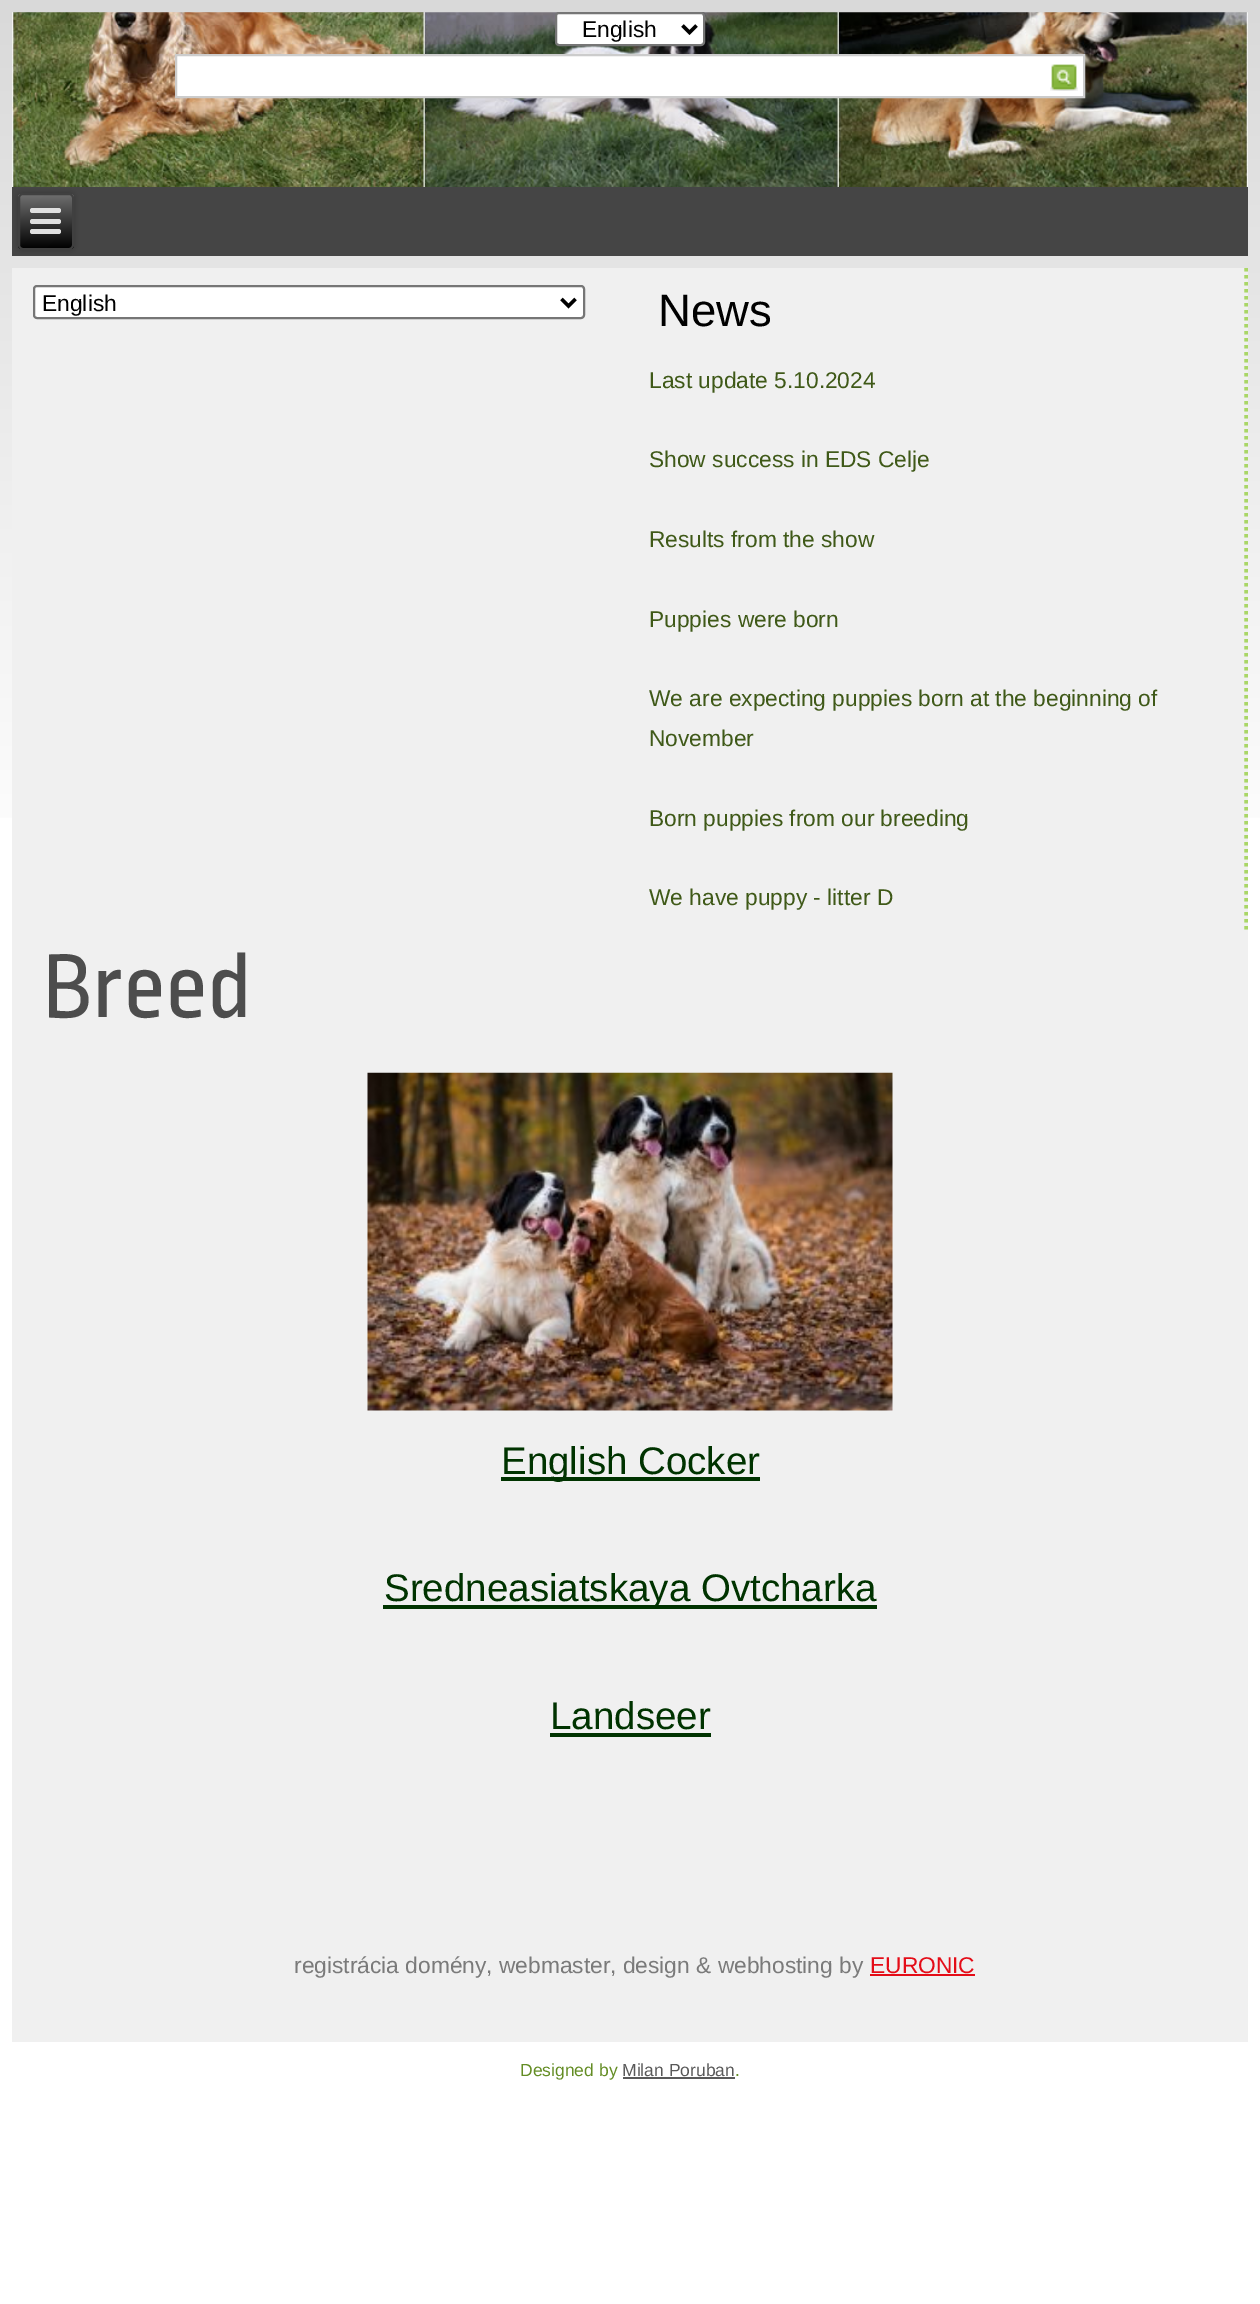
%!PS
<< /PageSize [1260 2304] /PageUsesTransparency true >> setpagedevice
/rgb { dup -16 bitshift 255 div exch dup -8 bitshift 255 and 255 div exch 255 and 255 div setrgbcolor } def
/font { [ exch dup neg 0 0 3 -1 roll 0 0 ] selectfont } def
/text { moveto show } def
/alpha { dup .setfillconstantalpha .setstrokeconstantalpha } def
/roundrect { 5 dict begin { /r /h /w /y /x } { exch def } forall
  x r add y moveto x w add y 2 copy h add r arct x w add y h add x 1 index r arct
  x y h add x y r arct x y 2 copy exch w add exch r arct closepath end } def
/shadow { 12 dict begin { /a /b /q /h /w /y /x } { exch def } forall gsave /was 0 def
  9 -2 -9 { dup b mul 4 div /e exch def 1 sub .425 mul 2.718 exch exp 1 add a .99 .min exch div /now exch def
    1 1 now sub 1 was sub div sub alpha /was now def
    w h .min e 2 mul add 0 gt { x e sub y e sub w e 2 mul add h e 2 mul add
      q e add b .6 mul add w h .min 2 div e add .min 0 .max roundrect fill } if } for grestore end } def
/picture { 5 dict begin { /h /w /y /x /name } { exch def } forall
  gsave x y translate w h scale
  w h 8 [w 0 0 h 0 0] name (r) file false 3 colorimage grestore end } def
0 .pushpdf14devicefilter
0 2304 translate 1 -1 scale
4 setmiterlimit
/s1 { /LiberationSans-Regular 22.75 font 16#000000 rgb } def
/s2 { /LiberationSans-Regular 45.5 font 16#000000 rgb } def
/s3 { /LiberationSans-Regular 22.75 font 16#3F5918 rgb } def
/s4 { /RopaSans-Regular 94.5 font 16#4D4D4D rgb } def
/s5 { /LiberationSans-Regular 38.5 font 16#003300 rgb } def
/s6 { /LiberationSans-Regular 22.75 font 16#7A7A7A rgb } def
/s7 { /LiberationSans-Regular 22.75 font 16#E40C17 rgb } def
/s8 { /LiberationSans-Regular 17.5 font 16#648D25 rgb } def
/s9 { /LiberationSans-Regular 17.5 font 16#595959 rgb } def
16#FFFFFF rgb
0 0 1260 2304 rectfill
gsave 0 0 moveto 1260 0 lineto 1260 818 lineto 0 818 lineto closepath clip newpath
<< /ShadingType 2 /ColorSpace /DeviceRGB /Coords [630 0 630 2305] /Extend [true true] /Function << /FunctionType 3 /Domain [0 1] /Functions [<< /FunctionType 2 /Domain [0 1] /C0 [0.851 0.851 0.851] /C1 [1 1 1] /N 1 >> << /FunctionType 2 /Domain [0 1] /C0 [1 1 1] /C1 [1 1 1] /N 1 >>] /Bounds [0.38] /Encode [0 1 0 1] >> >> shfill grestore
(pic1.raw) 12 12 1236 175 picture
556 13 148 32 3 roundrect gsave fill grestore
16#767676 rgb
2 setlinewidth
stroke
16#000000 rgb
3.5 setlinewidth
682.5 25.5 moveto 689.5 32.5 lineto 696.5 25.5 lineto stroke
s1
(English) 582 37 text
16#FFFFFF rgb
176 55 moveto 1084 55 lineto 1084 97 lineto 176 97 lineto closepath gsave fill grestore
16#CCCCCC rgb
2 setlinewidth
stroke
(pic2.raw) 1050 64 28 27 picture
16#454545 rgb
12 187 1236 69 rectfill
16#000000 rgb
18 193 56 57 5 2.5 0.2 shadow
gsave
18 193 56 57 5 roundrect clip newpath
gsave 18 194 moveto 74 194 lineto 74 249 lineto 18 249 lineto closepath clip newpath
<< /ShadingType 2 /ColorSpace /DeviceRGB /Coords [45 194 46 249] /Extend [true true] /Function << /FunctionType 2 /Domain [0 1] /C0 [0.439 0.439 0.439] /C1 [0 0 0] /N 1 >> >> shfill grestore
grestore
16#404040 rgb
19 194 54 55 4 roundrect stroke
16#E0E0E0 rgb
30 208 31 5 2.5 roundrect fill
30 219 31 5 2.5 roundrect fill
30 229 31 5 2.5 roundrect fill
16#F0F0F0 rgb
12 268 1236 1774 rectfill
16#A9D666 rgb
3.5 setlinewidth
[3.5 3.5] 0 setdash
1246 268 moveto 1246 933 lineto stroke
16#FFFFFF rgb
34 286 550 32 3 roundrect gsave fill grestore
16#767676 rgb
2 setlinewidth
[] 0 setdash
stroke
16#000000 rgb
3.5 setlinewidth
561.5 299 moveto 568.5 306 lineto 575.5 299 lineto stroke
(English) 42 311 text
s2
(News) 658 326 text
s3
(Last update 5.10.2024) 649 388 text
(Show success in EDS Celje) 649 467 text
(Results from the show) 649 547 text
(Puppies were born) 649 627 text
(We are expecting puppies born at the beginning of) 649 706 text
(November) 649 746 text
(Born puppies from our breeding) 649 826 text
(We have puppy - litter D) 649 905 text
s4
(Breed) 42 1017 text
(pic3.raw) 367 1072 526 339 picture
16#003300 rgb
501 1477 259 4 rectfill
s5
(English Cocker) 501 1474 text
383 1605 494 4 rectfill
(Sredneasiatskaya Ovtcharka) 384 1601 text
(Landseer) 550 1729 text
550 1733 161 4 rectfill
s6
(registrácia domény, webmaster, design & webhosting by) 294 1973 text
s7
(EURONIC) 870 1973 text
870 1974 105 2 rectfill
s8
(Designed by) 520 2076 text
s9
(Milan Poruban) 622 2076 text
s8
(.) 735 2076 text
16#595959 rgb
623 2077 112 2 rectfill
.poppdf14devicefilter showpage
